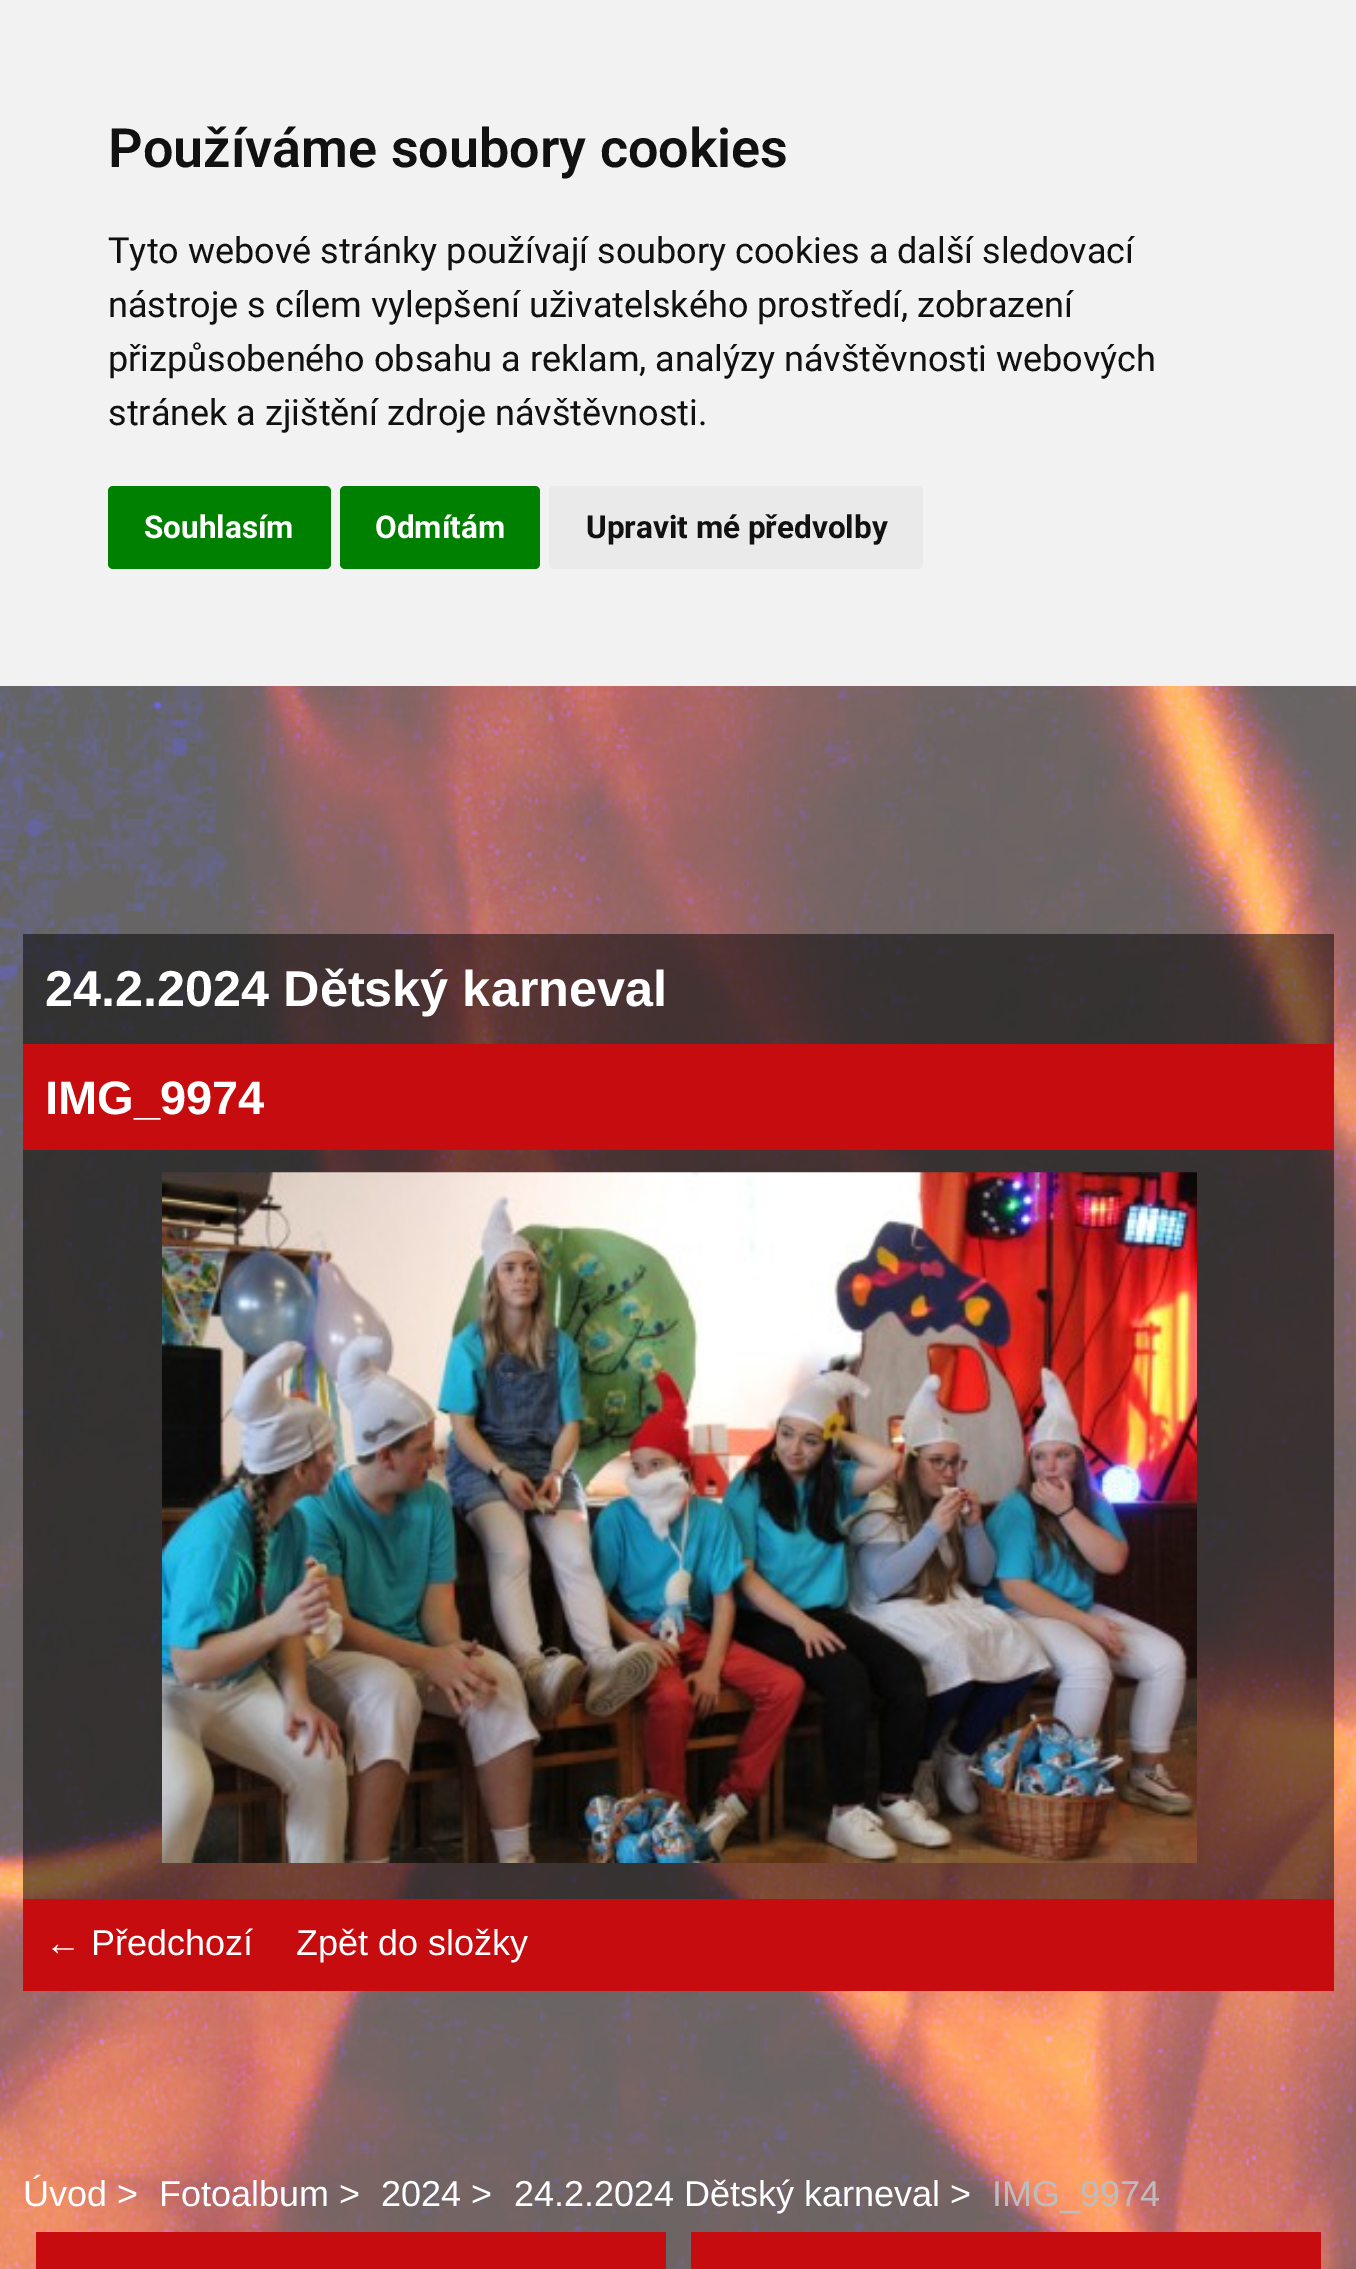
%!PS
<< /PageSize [1356 2269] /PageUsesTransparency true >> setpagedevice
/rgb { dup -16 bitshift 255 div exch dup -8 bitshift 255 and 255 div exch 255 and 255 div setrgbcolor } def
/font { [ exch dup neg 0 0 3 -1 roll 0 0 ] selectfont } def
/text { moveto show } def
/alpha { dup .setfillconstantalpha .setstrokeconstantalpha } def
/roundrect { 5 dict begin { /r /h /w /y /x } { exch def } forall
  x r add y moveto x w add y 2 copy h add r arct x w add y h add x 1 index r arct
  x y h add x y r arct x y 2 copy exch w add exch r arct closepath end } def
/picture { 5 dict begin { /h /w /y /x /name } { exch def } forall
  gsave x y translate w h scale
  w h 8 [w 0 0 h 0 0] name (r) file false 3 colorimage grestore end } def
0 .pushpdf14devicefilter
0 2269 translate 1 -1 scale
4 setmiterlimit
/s1 { /Roboto-SemiBold 54 font 16#111111 rgb } def
/s2 { /Roboto-Regular 36 font 16#111111 rgb } def
/s3 { /Roboto-Bold 31.5 font 16#FFFFFF rgb } def
/s4 { /Roboto-Bold 31.5 font 16#111111 rgb } def
/s5 { /LiberationSans-Bold 50.4 font 16#FFFFFF rgb } def
/s6 { /LiberationSans-Bold 47 font 16#FFFFFF rgb } def
/s7 { /LiberationSans-Regular 36 font 16#FFFFFF rgb } def
/s8 { /LiberationSans-Regular 36 font 16#BDBDBD rgb } def
16#FFFFFF rgb
0 0 1356 2269 rectfill
(pic1.raw) 0 686 1356 1583 picture
16#F2F2F2 rgb
0 0 1356 686 rectfill
s1
(Používáme soubory cookies) 108 167 text
s2
(Tyto webové stránky používají soubory cookies a další sledovací) 108 263 text
(nástroje s cílem vylepšení uživatelského prostředí, zobrazení) 108 317 text
(přizpůsobeného obsahu a reklam, analýzy návštěvnosti webových) 108 371 text
(stránek a zjištění zdroje návštěvnosti.) 108 425 text
16#008000 rgb
108 486 223 83 5 roundrect fill
s3
(Souhlasím) 144 538 text
16#008000 rgb
340 486 200 83 5 roundrect fill
s3
(Odmítám) 375 538 text
16#EAEAEA rgb
549 486 374 83 5 roundrect fill
s4
(Upravit mé předvolby) 586 538 text
0.5 alpha
16#000000 rgb
23 934 1311 110 rectfill
1 alpha
s5
(24.2.2024 Dětský karneval) 45 1006 text
16#C60C0F rgb
23 1044 1311 106 rectfill
s6
(IMG_9974) 45 1114 text
0.5 alpha
16#000000 rgb
23 1150 1311 749 rectfill
1 alpha
(pic2.raw) 162 1172 1035 691 picture
16#C60C0F rgb
23 1899 1311 92 rectfill
s7
(← Předchozí) 45 1955 text
(Zpět do složky) 296 1955 text
(Úvod >) 23 2206 text
(Fotoalbum >) 159 2206 text
(2024 >) 381 2206 text
(24.2.2024 Dětský karneval >) 514 2206 text
s8
(IMG_9974) 992 2206 text
16#C60C0F rgb
36 2232 630 37 rectfill
691 2232 630 37 rectfill
.poppdf14devicefilter showpage
